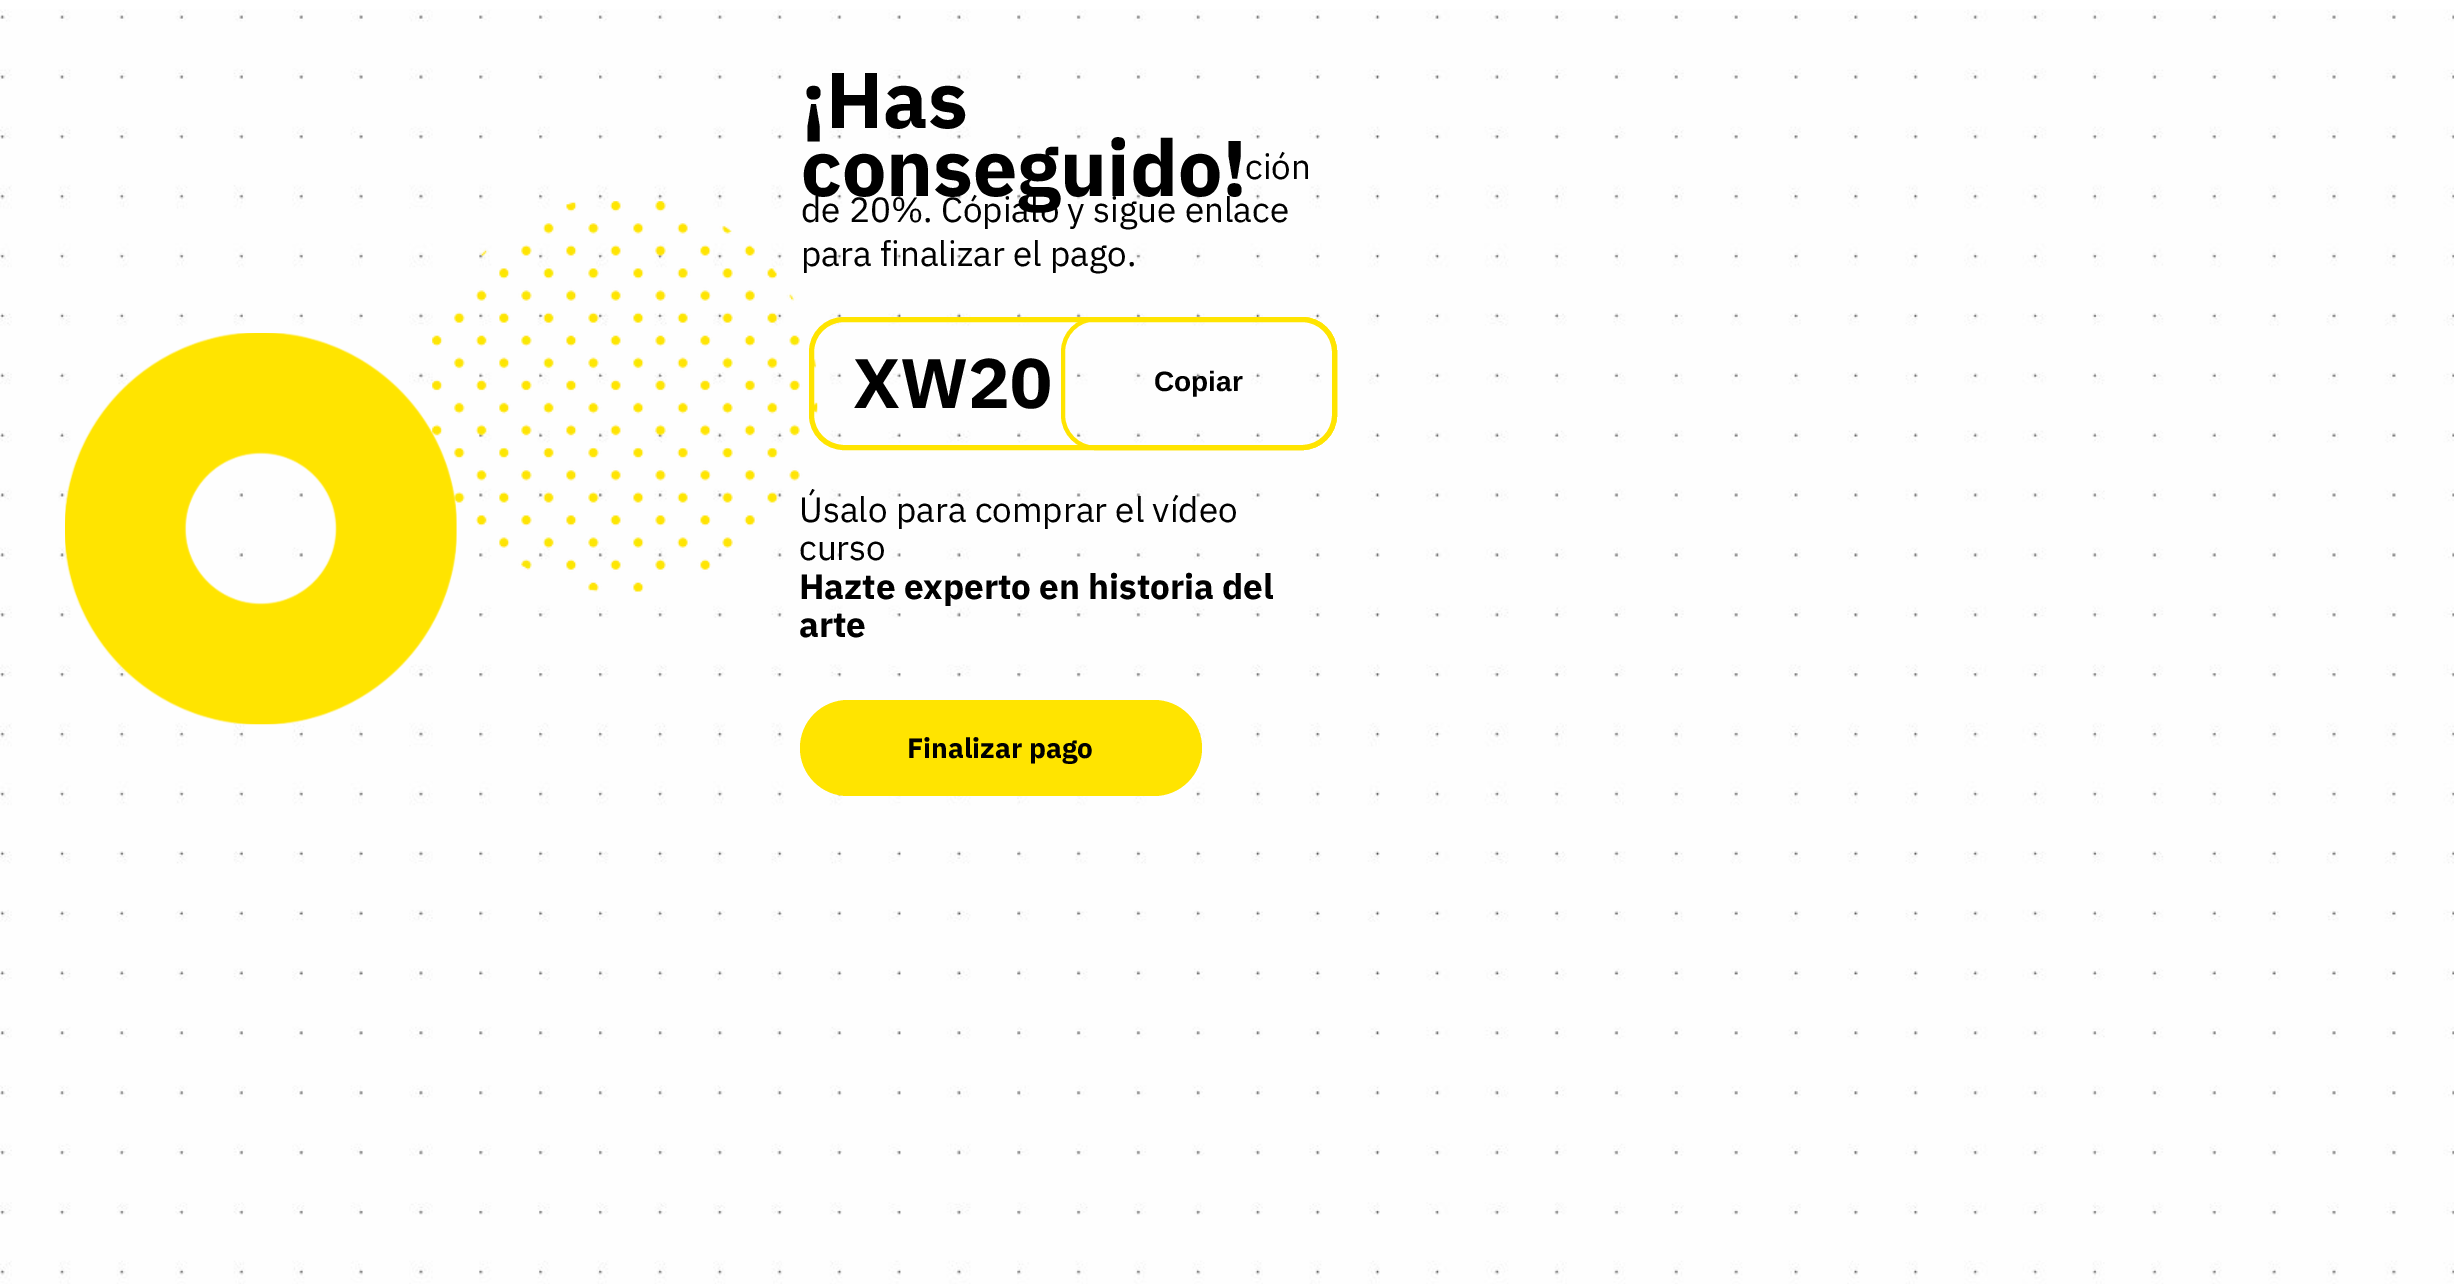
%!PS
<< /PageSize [2454 1288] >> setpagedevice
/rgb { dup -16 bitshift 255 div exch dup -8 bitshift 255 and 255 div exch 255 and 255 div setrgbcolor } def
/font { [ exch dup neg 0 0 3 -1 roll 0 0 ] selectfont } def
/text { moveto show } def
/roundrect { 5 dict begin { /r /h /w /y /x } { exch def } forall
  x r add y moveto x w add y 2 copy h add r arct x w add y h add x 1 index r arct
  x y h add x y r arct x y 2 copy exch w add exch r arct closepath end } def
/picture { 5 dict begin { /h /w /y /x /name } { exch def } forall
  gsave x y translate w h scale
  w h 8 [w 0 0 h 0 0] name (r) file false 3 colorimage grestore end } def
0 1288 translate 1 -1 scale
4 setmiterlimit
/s1 { /IBMPlexSans-Bold 78.75 font 16#000000 rgb } def
/s2 { /IBMPlexSans-Regular 35 font 16#000000 rgb } def
/s3 { /IBMPlexSans-Bold 70 font 16#000000 rgb } def
/s4 { /LiberationSans-Bold 28 font 16#000000 rgb } def
/s5 { /IBMPlexSans-Bold 35 font 16#000000 rgb } def
/s6 { /IBMPlexSans-Bold 28 font 16#000000 rgb } def
16#FFFFFF rgb
0 0 2454 1288 rectfill
(pic1.raw) 0 9 2454 1275 picture
s1
(¡Has) 801 128 text
(conseguido!) 801 196 text
(pic2.raw) 432 201 386 391 picture
s2
(ción) 1245 179 text
(de 20%. Cópialo y sigue enlace) 801 222 text
(para finalizar el pago.) 801 266 text
(pic3.raw) 65 333 392 392 picture
16#FFE400 rgb
5 setlinewidth
811.5 319.5 523 128 32.5 roundrect stroke
s3
(XW20) 853 408 text
16#FFE400 rgb
4 setlinewidth
1063 319 272 129 33 roundrect stroke
s4
(Copiar) 1154 391 text
s2
(Úsalo para comprar el vídeo) 799 522 text
(curso) 799 560 text
s5
(Hazte experto en historia del) 799 599 text
(arte) 799 637 text
16#FFE400 rgb
800 700 402 96 48 roundrect fill
s6
(Finalizar pago) 907 758 text
showpage
